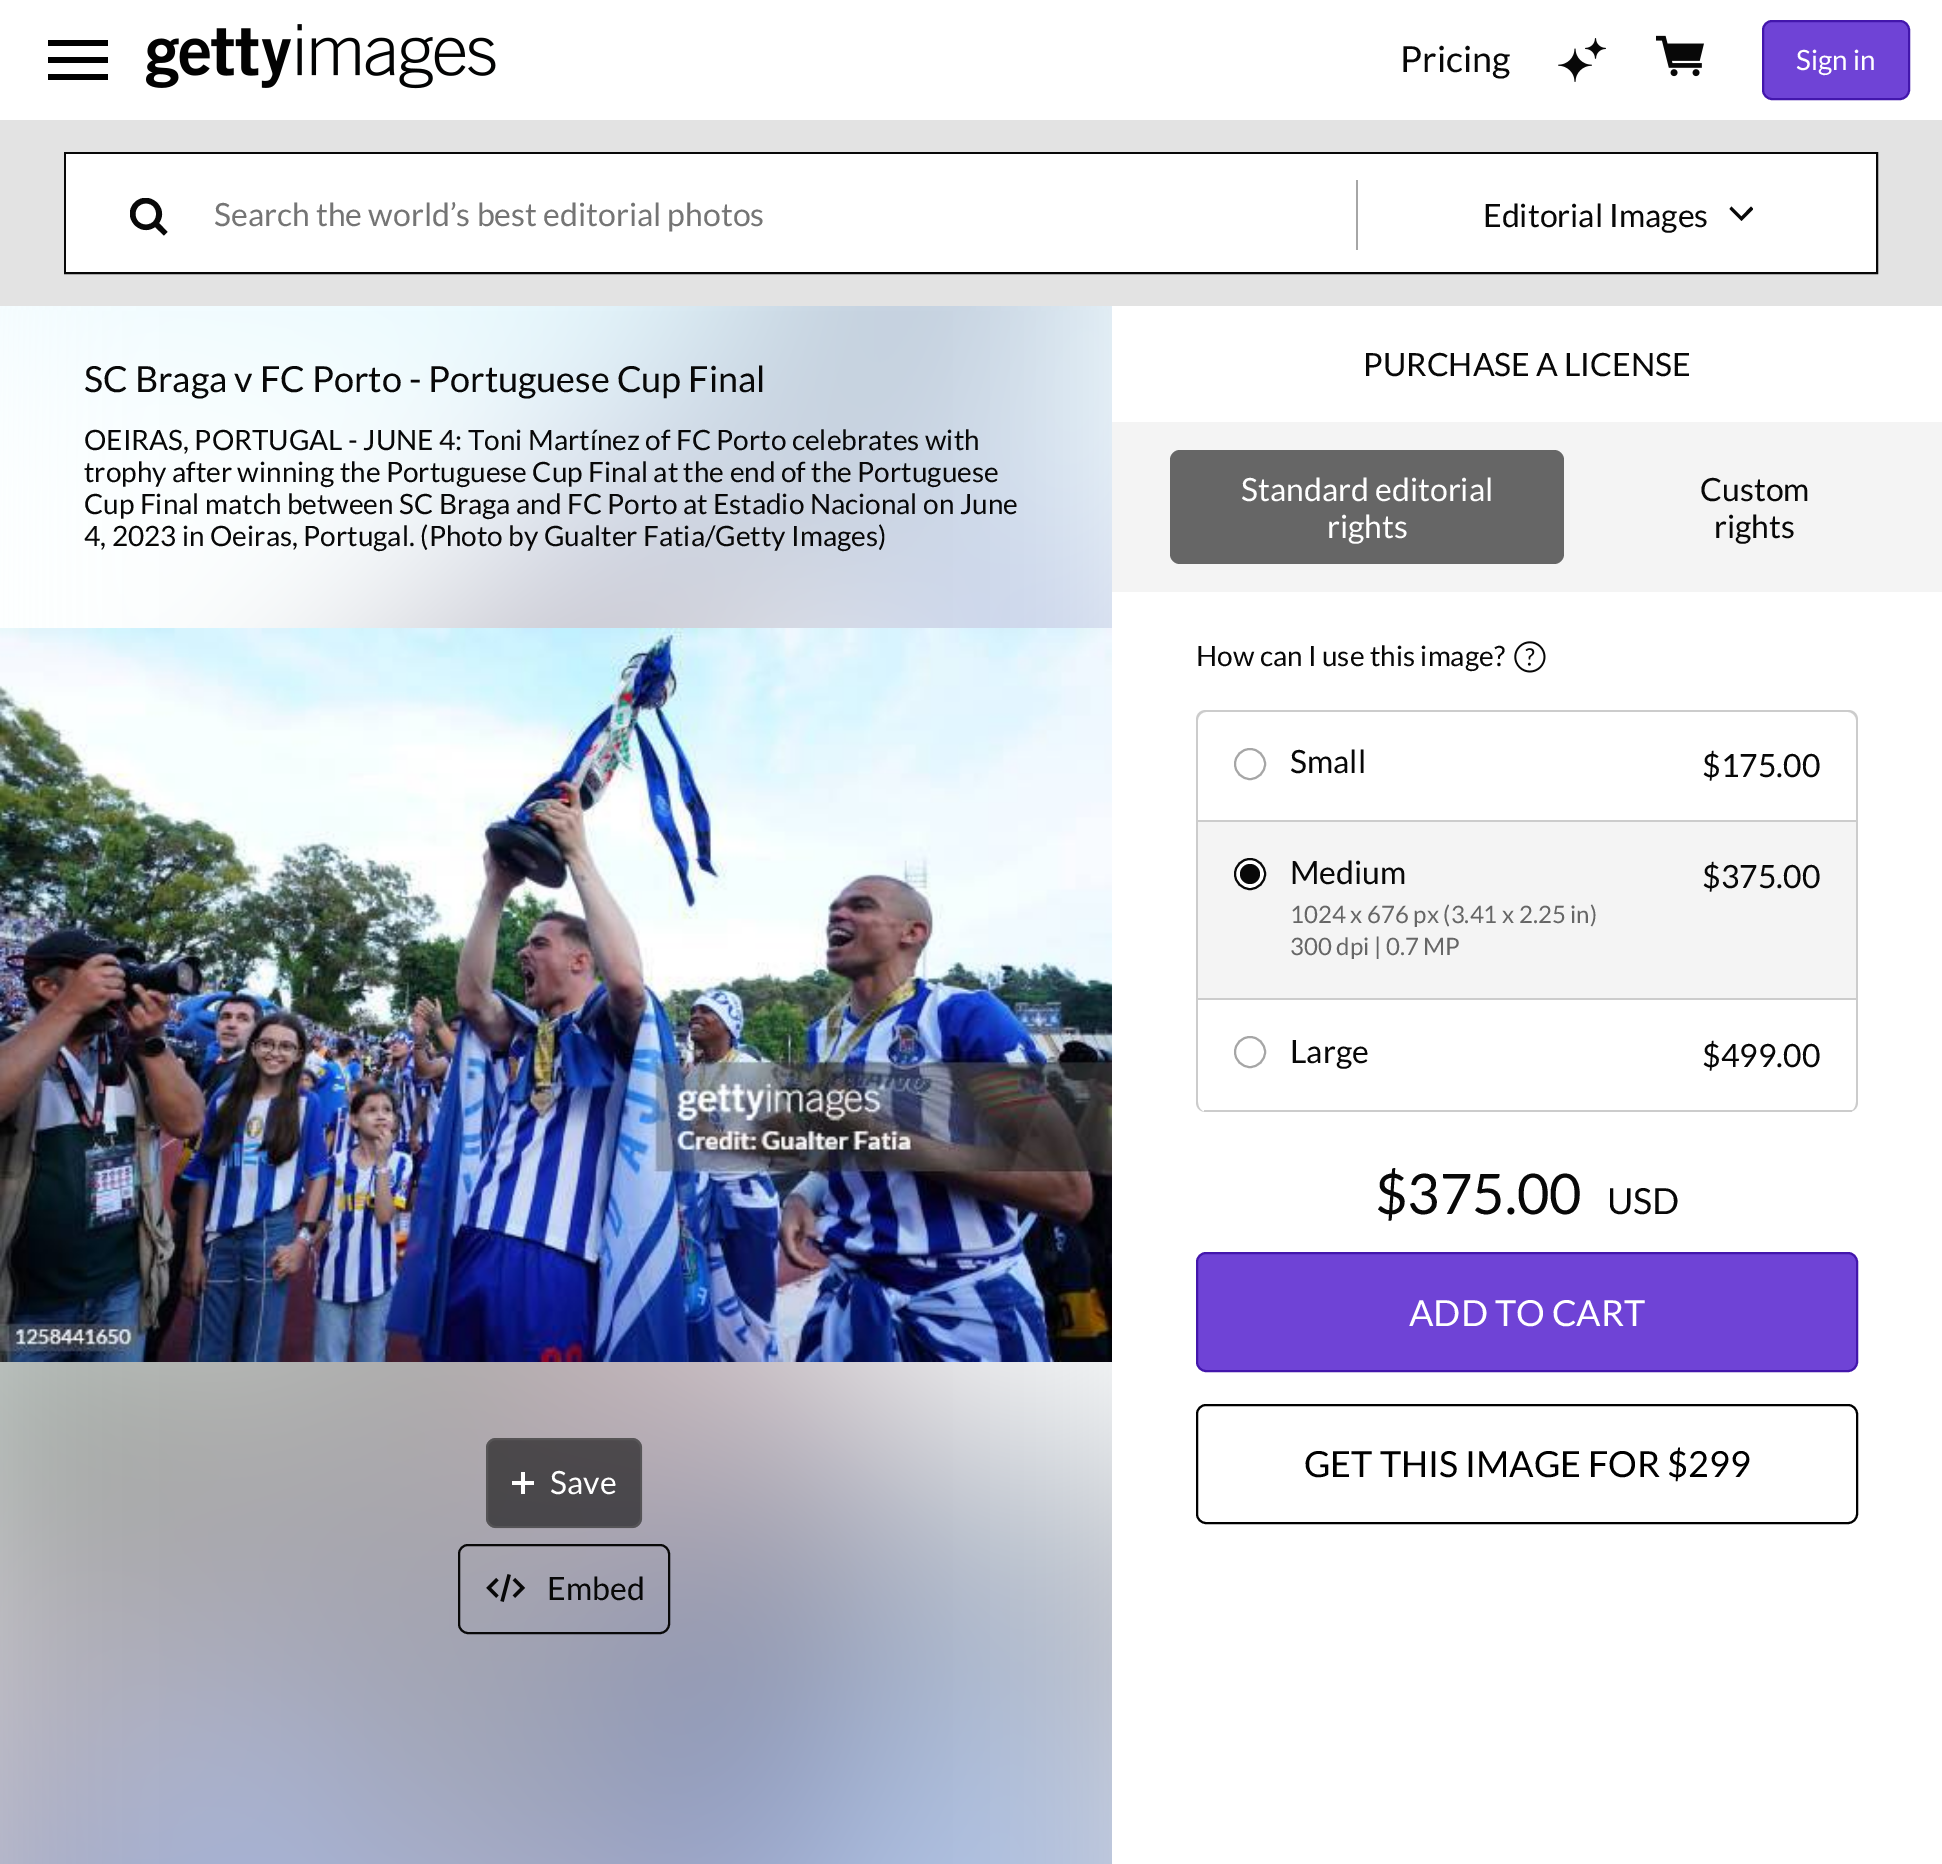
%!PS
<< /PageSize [1942 1864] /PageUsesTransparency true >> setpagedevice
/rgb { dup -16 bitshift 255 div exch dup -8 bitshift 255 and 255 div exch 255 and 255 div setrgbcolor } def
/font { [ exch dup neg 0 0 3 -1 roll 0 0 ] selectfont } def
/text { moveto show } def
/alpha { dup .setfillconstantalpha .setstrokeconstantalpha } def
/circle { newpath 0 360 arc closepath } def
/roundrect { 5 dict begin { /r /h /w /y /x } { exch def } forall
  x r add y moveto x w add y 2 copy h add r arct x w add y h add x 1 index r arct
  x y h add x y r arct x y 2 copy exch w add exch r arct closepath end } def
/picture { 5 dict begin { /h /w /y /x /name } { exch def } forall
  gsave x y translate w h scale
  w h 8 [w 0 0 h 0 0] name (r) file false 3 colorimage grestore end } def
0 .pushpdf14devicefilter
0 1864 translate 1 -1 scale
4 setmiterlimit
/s1 { /Lato-Regular 36 font 16#080808 rgb } def
/s2 { /Lato-Regular 28 font 16#FFFFFF rgb } def
/s3 { /Lato-Regular 32 font 16#757575 rgb } def
/s4 { /Lato-Regular 32 font 16#080808 rgb } def
/s5 { /Lato-Regular 28 font 16#080808 rgb } def
/s6 { /Lato-Regular 32 font 16#FFFFFF rgb } def
/s7 { /Lato-Regular 24 font 16#666666 rgb } def
/s8 { /Lato-Regular 56 font 16#080808 rgb } def
/s9 { /Lato-Regular 36 font 16#FFFFFF rgb } def
/s10 { /Lato-Regular 36 font 16#000000 rgb } def
16#FFFFFF rgb
0 0 1942 1864 rectfill
16#000000 rgb
48 40 moveto 108 40 lineto 108 46 lineto 48 46 lineto closepath 48 57 moveto 108 57 lineto 108 63 lineto 48 63 lineto closepath 48 74 moveto 108 74 lineto 108 80 lineto 48 80 lineto closepath fill
(pic1.raw) 146 24 350 65 picture
s1
(Pricing) 1400 72 text
(pic2.raw) 1558 38 48 44 picture
(pic3.raw) 1656 35 48 42 picture
16#6F43D6 rgb
1763 21 146 78 9 roundrect gsave fill grestore
16#4316AC rgb
2 setlinewidth
stroke
s2
(Sign in) 1796 70 text
16#E3E3E3 rgb
0 120 1942 186 rectfill
16#080808 rgb
65 153 1812 120 rectstroke
16#FFFFFF rgb
66 154 1810 118 rectfill
gsave
130 198 40 40 rectclip
16#080808 rgb
167.5 232 moveto 159 223 lineto 170 207.5 148.5 189 134.5 202.5 curveto 121 216.5 139.5 238 155 227 curveto 164 235.5 lineto closepath 146 224.5 moveto 132 224.5 132 203.5 146 203.5 curveto 159.5 203.5 159.5 224.5 146 224.5 curveto closepath fill
grestore
s3
(Search the world’s best editorial photos) 214 226 text
16#A6A6A6 rgb
1356 180 2 70 rectfill
s4
(Editorial Images) 1483 227 text
1741.5 221 moveto 1729.5 209 lineto 1731.5 206.5 lineto 1741.5 216.5 lineto 1751 206.5 lineto 1753 208.5 lineto 1753 209.5 lineto closepath fill
(pic4.raw) 0 306 1112 1558 picture
s1
(SC Braga v FC Porto - Portuguese Cup Final) 84 392 text
s5
(OEIRAS, PORTUGAL - JUNE 4: Toni Martínez of FC Porto celebrates with) 84 450 text
(trophy after winning the Portuguese Cup Final at the end of the Portuguese) 84 482 text
(Cup Final match between SC Braga and FC Porto at Estadio Nacional on June) 84 514 text
(4, 2023 in Oeiras, Portugal. \(Photo by Gualter Fatia/Getty Images\)) 84 546 text
(pic5.raw) 0 628 1112 734 picture
0.6 alpha
486 1438 156 90 10 roundrect fill
0.4 alpha
16#666666 rgb
487 1439 154 88 9 roundrect stroke
1 alpha
(pic6.raw) 512 1472 22 22 picture
s6
(Save) 550 1494 text
16#080808 rgb
459 1545 210 88 9 roundrect stroke
(pic7.raw) 486 1574 40 28 picture
(Embed) 547 1600 text
(PURCHASE A LICENSE) 1363 376 text
16#F4F4F4 rgb
1112 422 830 170 rectfill
16#666666 rgb
1170 450 394 114 10 roundrect fill
s6
(Standard editorial) 1241 501 text
(rights) 1327 538 text
s4
(Custom) 1700 501 text
(rights) 1714 538 text
s5
(How can I use this image?) 1196 666 text
(pic8.raw) 1514 641 32 32 picture
16#CCCCCC rgb
1206 710 moveto 1848 710 lineto 1854 710 1858 714 1858 720 curveto 1858 1102 lineto 1858 1108 1854 1112 1848 1112 curveto 1206 1112 lineto 1200 1112 1196 1108 1196 1102 curveto 1196 720 lineto 1196 714 1200 710 1206 710 curveto closepath 1206 712 moveto 1848 712 lineto 1852 712 1856 716 1856 720 curveto 1856 1102 lineto 1856 1108 1852 1112 1848 1112 curveto 1206 1112 lineto 1202 1112 1198 1108 1198 1102 curveto 1198 720 lineto 1198 716 1202 712 1206 712 curveto closepath eofill
1198 820 658 2 rectfill
16#A6A6A6 rgb
1250 764 15 circle stroke
s4
(Small) 1290 773 text
($175.00) 1702 777 text
16#F4F4F4 rgb
1198 822 658 176 rectfill
16#CCCCCC rgb
1198 998 658 2 rectfill
16#FFFFFF rgb
1250 874 15 circle gsave fill grestore
16#080808 rgb
stroke
1250 874 10 circle fill
(Medium) 1290 884 text
s7
(1024 x 676 px \(3.41 x 2.25 in\)) 1290 923 text
(300 dpi | 0.7 MP) 1290 955 text
s4
($375.00) 1702 888 text
16#CCCCCC rgb
1204 1110 648 2 rectfill
16#A6A6A6 rgb
1250 1052 15 circle stroke
s4
(Large) 1290 1063 text
($499.00) 1702 1067 text
s8
($375.00) 1375 1214 text
s1
(USD) 1607 1214 text
16#6F43D6 rgb
1197 1253 660 118 9 roundrect gsave fill grestore
16#4316AC rgb
stroke
s9
(ADD TO CART) 1409 1326 text
16#000000 rgb
1197 1405 660 118 9 roundrect stroke
(GET THIS IMAGE FOR $299) 1304 1477 text
.poppdf14devicefilter showpage
